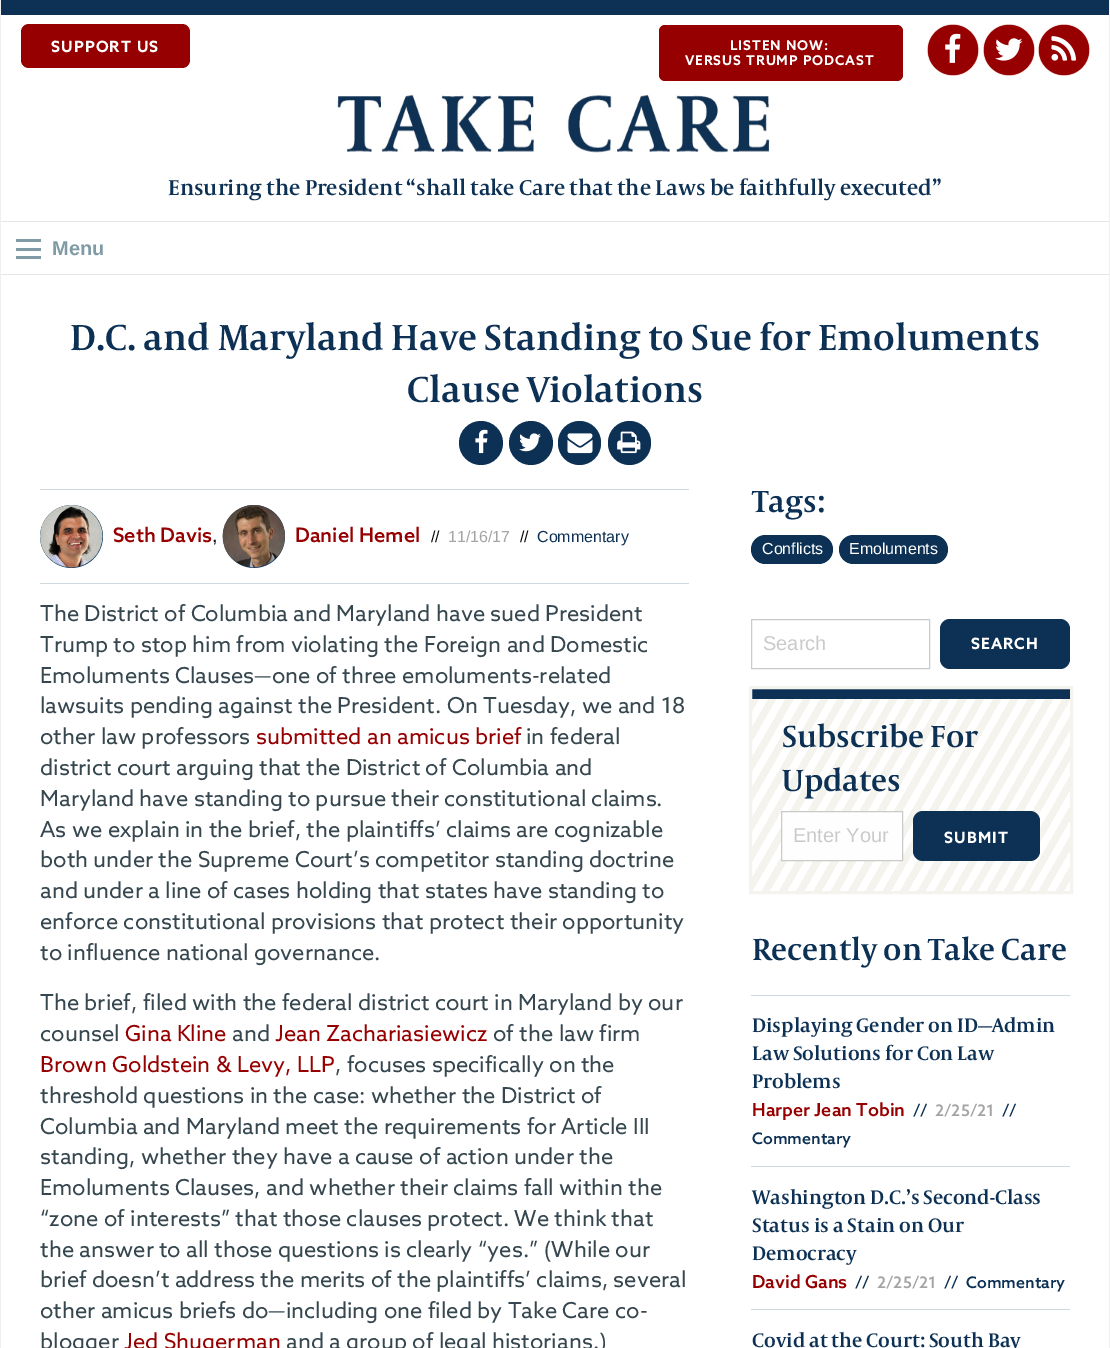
%!PS
<< /PageSize [1110 1348] /PageUsesTransparency true >> setpagedevice
/rgb { dup -16 bitshift 255 div exch dup -8 bitshift 255 and 255 div exch 255 and 255 div setrgbcolor } def
/font { [ exch dup neg 0 0 3 -1 roll 0 0 ] selectfont } def
/text { moveto show } def
/alpha { dup .setfillconstantalpha .setstrokeconstantalpha } def
/circle { newpath 0 360 arc closepath } def
/roundrect { 5 dict begin { /r /h /w /y /x } { exch def } forall
  x r add y moveto x w add y 2 copy h add r arct x w add y h add x 1 index r arct
  x y h add x y r arct x y 2 copy exch w add exch r arct closepath end } def
/shadow { 12 dict begin { /a /b /q /h /w /y /x } { exch def } forall gsave /was 0 def
  9 -2 -9 { dup b mul 4 div /e exch def 1 sub .425 mul 2.718 exch exp 1 add a .99 .min exch div /now exch def
    1 1 now sub 1 was sub div sub alpha /was now def
    w h .min e 2 mul add 0 gt { x e sub y e sub w e 2 mul add h e 2 mul add
      q e add b .6 mul add w h .min 2 div e add .min 0 .max roundrect fill } if } for grestore end } def
/picture { 5 dict begin { /h /w /y /x /name } { exch def } forall
  gsave x y translate w h scale
  w h 8 [w 0 0 h 0 0] name (r) file false 3 colorimage grestore end } def
0 .pushpdf14devicefilter
0 1348 translate 1 -1 scale
4 setmiterlimit
/s1 { /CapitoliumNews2-SemiBold 22 font 16#0D3155 rgb } def
/s2 { /LiberationSans-Bold 20 font 16#809BA5 rgb } def
/s3 { /CapitoliumNews2-SemiBold 37 font 16#0D3155 rgb } def
/s4 { /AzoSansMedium-Medium 20 font 16#960000 rgb } def
/s5 { /LiberationSans-Regular 20 font 16#0A0A0A rgb } def
/s6 { /LiberationSans-Regular 16 font 16#0A0A0A rgb } def
/s7 { /LiberationSans-Regular 16 font 16#A4A4A4 rgb } def
/s8 { /LiberationSans-Regular 16 font 16#0D3155 rgb } def
/s9 { /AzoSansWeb-Regular 22 font 16#36474F rgb } def
/s10 { /AzoSansWeb-Regular 22 font 16#960000 rgb } def
/s11 { /CapitoliumNews2-SemiBold 31.25 font 16#0D3155 rgb } def
/s12 { /LiberationSans-Regular 16 font 16#FFFFFF rgb } def
/s13 { /LiberationSans-Regular 20 font 16#CACACA rgb } def
/s14 { /CapitoliumNews2-SemiBold 20 font 16#0D3155 rgb } def
/s15 { /AzoSansMedium-Medium 18 font 16#960000 rgb } def
/s16 { /AzoSansMedium-Medium 16 font 16#0D3155 rgb } def
/s17 { /AzoSansMedium-Medium 16 font 16#A4A4A4 rgb } def
16#FFFFFF rgb
0 0 1110 1348 rectfill
16#0D3155 rgb
1 0 1108 15 rectfill
16#EFEFEF rgb
1109 0 1 250 rectfill
0 0 1 250 rectfill
16#960000 rgb
21 24 169 44 8 roundrect fill
/AzoSansMedium-Bold 15 font
16#FFFFFF rgb
51 52 moveto 1.5 0 (SUPPORT US) ashow
16#960000 rgb
659 25 244 56 6 roundrect fill
/AzoSansMedium-Bold 13 font
16#FFFFFF rgb
730 50 moveto 1.3 0 (LISTEN NOW:) ashow
685 65 moveto 1.3 0 (VERSUS TRUMP PODCAST) ashow
16#960000 rgb
928 25 50 50 25 0.5 1 shadow
953 50 25 circle fill
(pic1.raw) 945 33 16 30 picture
984 25 50 50 25 0.5 1 shadow
1009 50 25 circle fill
(pic2.raw) 995 38 28 23 picture
1039 25 50 50 25 0.5 1 shadow
1064 50 25 circle fill
(pic3.raw) 1051 36 25 25 picture
(pic4.raw) 337 94 433 59 picture
s1
(Ensuring the President “shall take Care that the Laws be faithfully executed”) 168 195 text
16#E6E6E6 rgb
1 221 1108 1 rectfill
1 274 1108 1 rectfill
16#809BA5 rgb
16 256 25 3 rectfill
16 248 25 3 rectfill
16 239 25 3 rectfill
s2
(Menu) 52 255 text
16#EFEFEF rgb
1109 250 1 1098 rectfill
0 250 1 1098 rectfill
s3
(D.C. and Maryland Have Standing to Sue for Emoluments) 70 350 text
(Clause Violations) 407 402 text
481 443 22 circle fill
(pic5.raw) 475 429 13 25 picture
531 443 22 circle fill
(pic6.raw) 519 433 22 19 picture
558 421 43 44 21.5 roundrect fill
(pic7.raw) 567 433 26 21 picture
608 421 43 44 21.5 roundrect fill
(pic8.raw) 617 431 24 23 picture
16#CFD9DE rgb
40 489 649 1 rectfill
16#003058 rgb
71.5 536.5 31.5 circle fill
(pic9.raw) 40 505 63 63 picture
s4
(Seth Davis) 113 542 text
s5
(,) 212 542 text
16#003058 rgb
223 505 62 63 31 roundrect fill
(pic10.raw) 222 505 64 63 picture
s4
(Daniel Hemel) 295 542 text
s6
(//) 431 542 text
s7
(11/16/17) 448 542 text
s6
(//) 520 542 text
s8
(Commentary) 537 542 text
16#CFD9DE rgb
40 583 649 1 rectfill
s9
(The District of Columbia and Maryland have sued President) 40 621 text
(Trump to stop him from violating the Foreign and Domestic) 40 652 text
(Emoluments Clauses—one of three emoluments-related) 40 683 text
(lawsuits pending against the President. On Tuesday, we and 18) 40 713 text
(other law professors) 40 744 text
s10
(submitted an amicus brief) 256 744 text
s9
(in federal) 526 744 text
(district court arguing that the District of Columbia and) 40 775 text
(Maryland have standing to pursue their constitutional claims.) 40 806 text
(As we explain in the brief, the plaintiffs’ claims are cognizable) 40 837 text
(both under the Supreme Court’s competitor standing doctrine) 40 867 text
(and under a line of cases holding that states have standing to) 40 898 text
(enforce constitutional provisions that protect their opportunity) 40 929 text
(to influence national governance.) 40 960 text
(The brief, filed with the federal district court in Maryland by our) 40 1010 text
(counsel) 40 1041 text
s10
(Gina Kline) 125 1041 text
s9
(and) 232 1041 text
s10
(Jean Zachariasiewicz) 275 1041 text
s9
(of the law firm) 493 1041 text
s10
(Brown Goldstein & Levy, LLP) 40 1072 text
s9
(, focuses specifically on the) 335 1072 text
(threshold questions in the case: whether the District of) 40 1103 text
(Columbia and Maryland meet the requirements for Article III) 40 1134 text
(standing, whether they have a cause of action under the) 40 1164 text
(Emoluments Clauses, and whether their claims fall within the) 40 1195 text
(“zone of interests” that those clauses protect. We think that) 40 1226 text
(the answer to all those questions is clearly “yes.” \(While our) 40 1257 text
(brief doesn’t address the merits of the plaintiffs’ claims, several) 40 1287 text
(other amicus briefs do—including one filed by Take Care co-) 40 1318 text
(blogger) 40 1349 text
s10
(Jed Shugerman) 124 1349 text
s9
(and a group of legal historians.\)) 286 1349 text
s11
(Tags:) 752 512 text
751 535 82 29 14.5 roundrect fill
s12
(Conflicts) 762 554 text
16#0D3155 rgb
839 535 109 29 14.5 roundrect fill
s12
(Emoluments) 849 554 text
16#CACACA rgb
751.5 619.5 178 49 rectstroke
s13
(Search) 763 650 text
16#0D3155 rgb
940 619 130 50 10 roundrect fill
/AzoSansMedium-Bold 15 font
16#FFFFFF rgb
971 649 moveto 1.5 0 (SEARCH) ashow
gsave 752 699 moveto 1070 699 lineto 1070 891 lineto 752 891 lineto closepath clip newpath
<< /ShadingType 2 /ColorSpace /DeviceRGB /Coords [749 702 1074 889] /Extend [true true] /Function << /FunctionType 3 /Domain [0 1] /Functions [<< /FunctionType 2 /Domain [0 1] /C0 [0.961 0.953 0.933] /C1 [0.961 0.953 0.933] /N 1 >> << /FunctionType 2 /Domain [0 1] /C0 [0.961 0.953 0.933] /C1 [0.961 0.953 0.933] /N 1 >> << /FunctionType 2 /Domain [0 1] /C0 [1 1 1] /C1 [1 1 1] /N 1 >> << /FunctionType 2 /Domain [0 1] /C0 [1 1 1] /C1 [1 1 1] /N 1 >> << /FunctionType 2 /Domain [0 1] /C0 [0.961 0.953 0.933] /C1 [0.961 0.953 0.933] /N 1 >> << /FunctionType 2 /Domain [0 1] /C0 [0.961 0.953 0.933] /C1 [0.961 0.953 0.933] /N 1 >> << /FunctionType 2 /Domain [0 1] /C0 [1 1 1] /C1 [1 1 1] /N 1 >> << /FunctionType 2 /Domain [0 1] /C0 [1 1 1] /C1 [1 1 1] /N 1 >> << /FunctionType 2 /Domain [0 1] /C0 [0.961 0.953 0.933] /C1 [0.961 0.953 0.933] /N 1 >> << /FunctionType 2 /Domain [0 1] /C0 [0.961 0.953 0.933] /C1 [0.961 0.953 0.933] /N 1 >> << /FunctionType 2 /Domain [0 1] /C0 [1 1 1] /C1 [1 1 1] /N 1 >> << /FunctionType 2 /Domain [0 1] /C0 [1 1 1] /C1 [1 1 1] /N 1 >> << /FunctionType 2 /Domain [0 1] /C0 [0.961 0.953 0.933] /C1 [0.961 0.953 0.933] /N 1 >> << /FunctionType 2 /Domain [0 1] /C0 [0.961 0.953 0.933] /C1 [0.961 0.953 0.933] /N 1 >> << /FunctionType 2 /Domain [0 1] /C0 [1 1 1] /C1 [1 1 1] /N 1 >> << /FunctionType 2 /Domain [0 1] /C0 [1 1 1] /C1 [1 1 1] /N 1 >> << /FunctionType 2 /Domain [0 1] /C0 [0.961 0.953 0.933] /C1 [0.961 0.953 0.933] /N 1 >> << /FunctionType 2 /Domain [0 1] /C0 [0.961 0.953 0.933] /C1 [0.961 0.953 0.933] /N 1 >> << /FunctionType 2 /Domain [0 1] /C0 [1 1 1] /C1 [1 1 1] /N 1 >> << /FunctionType 2 /Domain [0 1] /C0 [1 1 1] /C1 [1 1 1] /N 1 >> << /FunctionType 2 /Domain [0 1] /C0 [0.961 0.953 0.933] /C1 [0.961 0.953 0.933] /N 1 >> << /FunctionType 2 /Domain [0 1] /C0 [0.961 0.953 0.933] /C1 [0.961 0.953 0.933] /N 1 >> << /FunctionType 2 /Domain [0 1] /C0 [1 1 1] /C1 [1 1 1] /N 1 >> << /FunctionType 2 /Domain [0 1] /C0 [1 1 1] /C1 [1 1 1] /N 1 >> << /FunctionType 2 /Domain [0 1] /C0 [0.961 0.953 0.933] /C1 [0.961 0.953 0.933] /N 1 >> << /FunctionType 2 /Domain [0 1] /C0 [0.961 0.953 0.933] /C1 [0.961 0.953 0.933] /N 1 >> << /FunctionType 2 /Domain [0 1] /C0 [1 1 1] /C1 [1 1 1] /N 1 >> << /FunctionType 2 /Domain [0 1] /C0 [1 1 1] /C1 [1 1 1] /N 1 >> << /FunctionType 2 /Domain [0 1] /C0 [0.961 0.953 0.933] /C1 [0.961 0.953 0.933] /N 1 >> << /FunctionType 2 /Domain [0 1] /C0 [0.961 0.953 0.933] /C1 [0.961 0.953 0.933] /N 1 >> << /FunctionType 2 /Domain [0 1] /C0 [1 1 1] /C1 [1 1 1] /N 1 >> << /FunctionType 2 /Domain [0 1] /C0 [1 1 1] /C1 [1 1 1] /N 1 >> << /FunctionType 2 /Domain [0 1] /C0 [0.961 0.953 0.933] /C1 [0.961 0.953 0.933] /N 1 >> << /FunctionType 2 /Domain [0 1] /C0 [0.961 0.953 0.933] /C1 [0.961 0.953 0.933] /N 1 >> << /FunctionType 2 /Domain [0 1] /C0 [1 1 1] /C1 [1 1 1] /N 1 >> << /FunctionType 2 /Domain [0 1] /C0 [1 1 1] /C1 [1 1 1] /N 1 >> << /FunctionType 2 /Domain [0 1] /C0 [0.961 0.953 0.933] /C1 [0.961 0.953 0.933] /N 1 >> << /FunctionType 2 /Domain [0 1] /C0 [0.961 0.953 0.933] /C1 [0.961 0.953 0.933] /N 1 >> << /FunctionType 2 /Domain [0 1] /C0 [1 1 1] /C1 [1 1 1] /N 1 >> << /FunctionType 2 /Domain [0 1] /C0 [1 1 1] /C1 [1 1 1] /N 1 >> << /FunctionType 2 /Domain [0 1] /C0 [0.961 0.953 0.933] /C1 [0.961 0.953 0.933] /N 1 >> << /FunctionType 2 /Domain [0 1] /C0 [0.961 0.953 0.933] /C1 [0.961 0.953 0.933] /N 1 >> << /FunctionType 2 /Domain [0 1] /C0 [1 1 1] /C1 [1 1 1] /N 1 >> << /FunctionType 2 /Domain [0 1] /C0 [1 1 1] /C1 [1 1 1] /N 1 >> << /FunctionType 2 /Domain [0 1] /C0 [0.961 0.953 0.933] /C1 [0.961 0.953 0.933] /N 1 >> << /FunctionType 2 /Domain [0 1] /C0 [0.961 0.953 0.933] /C1 [0.961 0.953 0.933] /N 1 >> << /FunctionType 2 /Domain [0 1] /C0 [1 1 1] /C1 [1 1 1] /N 1 >> << /FunctionType 2 /Domain [0 1] /C0 [1 1 1] /C1 [1 1 1] /N 1 >> << /FunctionType 2 /Domain [0 1] /C0 [0.961 0.953 0.933] /C1 [0.961 0.953 0.933] /N 1 >> << /FunctionType 2 /Domain [0 1] /C0 [0.961 0.953 0.933] /C1 [0.961 0.953 0.933] /N 1 >> << /FunctionType 2 /Domain [0 1] /C0 [1 1 1] /C1 [1 1 1] /N 1 >> << /FunctionType 2 /Domain [0 1] /C0 [1 1 1] /C1 [1 1 1] /N 1 >> << /FunctionType 2 /Domain [0 1] /C0 [0.961 0.953 0.933] /C1 [0.961 0.953 0.933] /N 1 >> << /FunctionType 2 /Domain [0 1] /C0 [0.961 0.953 0.933] /C1 [0.961 0.953 0.933] /N 1 >> << /FunctionType 2 /Domain [0 1] /C0 [1 1 1] /C1 [1 1 1] /N 1 >> << /FunctionType 2 /Domain [0 1] /C0 [1 1 1] /C1 [1 1 1] /N 1 >> << /FunctionType 2 /Domain [0 1] /C0 [0.961 0.953 0.933] /C1 [0.961 0.953 0.933] /N 1 >> << /FunctionType 2 /Domain [0 1] /C0 [0.961 0.953 0.933] /C1 [0.961 0.953 0.933] /N 1 >> << /FunctionType 2 /Domain [0 1] /C0 [1 1 1] /C1 [1 1 1] /N 1 >> << /FunctionType 2 /Domain [0 1] /C0 [1 1 1] /C1 [1 1 1] /N 1 >> << /FunctionType 2 /Domain [0 1] /C0 [0.961 0.953 0.933] /C1 [0.961 0.953 0.933] /N 1 >> << /FunctionType 2 /Domain [0 1] /C0 [0.961 0.953 0.933] /C1 [0.961 0.953 0.933] /N 1 >> << /FunctionType 2 /Domain [0 1] /C0 [1 1 1] /C1 [1 1 1] /N 1 >> << /FunctionType 2 /Domain [0 1] /C0 [1 1 1] /C1 [1 1 1] /N 1 >> << /FunctionType 2 /Domain [0 1] /C0 [0.961 0.953 0.933] /C1 [0.961 0.953 0.933] /N 1 >> << /FunctionType 2 /Domain [0 1] /C0 [0.961 0.953 0.933] /C1 [0.961 0.953 0.933] /N 1 >> << /FunctionType 2 /Domain [0 1] /C0 [1 1 1] /C1 [1 1 1] /N 1 >> << /FunctionType 2 /Domain [0 1] /C0 [1 1 1] /C1 [1 1 1] /N 1 >> << /FunctionType 2 /Domain [0 1] /C0 [0.961 0.953 0.933] /C1 [0.961 0.953 0.933] /N 1 >> << /FunctionType 2 /Domain [0 1] /C0 [0.961 0.953 0.933] /C1 [0.961 0.953 0.933] /N 1 >> << /FunctionType 2 /Domain [0 1] /C0 [1 1 1] /C1 [1 1 1] /N 1 >> << /FunctionType 2 /Domain [0 1] /C0 [1 1 1] /C1 [1 1 1] /N 1 >> << /FunctionType 2 /Domain [0 1] /C0 [0.961 0.953 0.933] /C1 [0.961 0.953 0.933] /N 1 >> << /FunctionType 2 /Domain [0 1] /C0 [0.961 0.953 0.933] /C1 [0.961 0.953 0.933] /N 1 >> << /FunctionType 2 /Domain [0 1] /C0 [1 1 1] /C1 [1 1 1] /N 1 >> << /FunctionType 2 /Domain [0 1] /C0 [1 1 1] /C1 [1 1 1] /N 1 >> << /FunctionType 2 /Domain [0 1] /C0 [0.961 0.953 0.933] /C1 [0.961 0.953 0.933] /N 1 >> << /FunctionType 2 /Domain [0 1] /C0 [0.961 0.953 0.933] /C1 [0.961 0.953 0.933] /N 1 >> << /FunctionType 2 /Domain [0 1] /C0 [1 1 1] /C1 [1 1 1] /N 1 >> << /FunctionType 2 /Domain [0 1] /C0 [1 1 1] /C1 [1 1 1] /N 1 >> << /FunctionType 2 /Domain [0 1] /C0 [0.961 0.953 0.933] /C1 [0.961 0.953 0.933] /N 1 >> << /FunctionType 2 /Domain [0 1] /C0 [0.961 0.953 0.933] /C1 [0.961 0.953 0.933] /N 1 >> << /FunctionType 2 /Domain [0 1] /C0 [1 1 1] /C1 [1 1 1] /N 1 >> << /FunctionType 2 /Domain [0 1] /C0 [1 1 1] /C1 [1 1 1] /N 1 >> << /FunctionType 2 /Domain [0 1] /C0 [0.961 0.953 0.933] /C1 [0.961 0.953 0.933] /N 1 >> << /FunctionType 2 /Domain [0 1] /C0 [0.961 0.953 0.933] /C1 [0.961 0.953 0.933] /N 1 >> << /FunctionType 2 /Domain [0 1] /C0 [1 1 1] /C1 [1 1 1] /N 1 >> << /FunctionType 2 /Domain [0 1] /C0 [1 1 1] /C1 [1 1 1] /N 1 >> << /FunctionType 2 /Domain [0 1] /C0 [0.961 0.953 0.933] /C1 [0.961 0.953 0.933] /N 1 >> << /FunctionType 2 /Domain [0 1] /C0 [0.961 0.953 0.933] /C1 [0.961 0.953 0.933] /N 1 >> << /FunctionType 2 /Domain [0 1] /C0 [1 1 1] /C1 [1 1 1] /N 1 >> << /FunctionType 2 /Domain [0 1] /C0 [1 1 1] /C1 [1 1 1] /N 1 >> << /FunctionType 2 /Domain [0 1] /C0 [0.961 0.953 0.933] /C1 [0.961 0.953 0.933] /N 1 >> << /FunctionType 2 /Domain [0 1] /C0 [0.961 0.953 0.933] /C1 [0.961 0.953 0.933] /N 1 >> << /FunctionType 2 /Domain [0 1] /C0 [1 1 1] /C1 [1 1 1] /N 1 >> << /FunctionType 2 /Domain [0 1] /C0 [1 1 1] /C1 [1 1 1] /N 1 >> << /FunctionType 2 /Domain [0 1] /C0 [0.961 0.953 0.933] /C1 [0.961 0.953 0.933] /N 1 >> << /FunctionType 2 /Domain [0 1] /C0 [0.961 0.953 0.933] /C1 [0.961 0.953 0.933] /N 1 >> << /FunctionType 2 /Domain [0 1] /C0 [1 1 1] /C1 [1 1 1] /N 1 >> << /FunctionType 2 /Domain [0 1] /C0 [1 1 1] /C1 [1 1 1] /N 1 >>] /Bounds [0.01 0.02 0.03 0.04 0.05 0.06 0.07 0.08 0.09 0.1 0.11 0.12 0.13 0.14 0.15 0.16 0.17 0.18 0.19 0.2 0.21 0.22 0.23 0.24 0.25 0.26 0.27 0.28 0.29 0.3 0.31 0.32 0.33 0.34 0.35 0.36 0.37 0.38 0.39 0.4 0.41 0.42 0.43 0.44 0.45 0.46 0.47 0.48 0.49 0.5 0.51 0.52 0.53 0.54 0.55 0.56 0.57 0.58 0.59 0.6 0.61 0.62 0.63 0.64 0.65 0.66 0.67 0.68 0.69 0.7 0.71 0.72 0.73 0.74 0.75 0.76 0.77 0.78 0.79 0.8 0.81 0.82 0.83 0.84 0.85 0.86 0.87 0.88 0.89 0.9 0.91 0.92 0.93 0.94 0.95 0.96 0.97 0.98 0.99] /Encode [0 1 0 1 0 1 0 1 0 1 0 1 0 1 0 1 0 1 0 1 0 1 0 1 0 1 0 1 0 1 0 1 0 1 0 1 0 1 0 1 0 1 0 1 0 1 0 1 0 1 0 1 0 1 0 1 0 1 0 1 0 1 0 1 0 1 0 1 0 1 0 1 0 1 0 1 0 1 0 1 0 1 0 1 0 1 0 1 0 1 0 1 0 1 0 1 0 1 0 1 0 1 0 1 0 1 0 1 0 1 0 1 0 1 0 1 0 1 0 1 0 1 0 1 0 1 0 1 0 1 0 1 0 1 0 1 0 1 0 1 0 1 0 1 0 1 0 1 0 1 0 1 0 1 0 1 0 1 0 1 0 1 0 1 0 1 0 1 0 1 0 1 0 1 0 1 0 1 0 1 0 1 0 1 0 1 0 1 0 1 0 1 0 1 0 1 0 1 0 1] >> >> shfill grestore
16#0D3155 rgb
752 689 318 10 rectfill
16#FEFEFE rgb
781.5 811.5 moveto 902.5 811.5 lineto 902.5 860.5 lineto 781.5 860.5 lineto closepath gsave fill grestore
16#CACACA rgb
stroke
16#0D3155 rgb
913 811 127 50 10 roundrect fill
16#F5F3EE rgb
3 setlinewidth
750.5 687.5 321 205 rectstroke
s11
(Subscribe For) 782 747 text
(Updates) 782 791 text
s13
(Enter Your) 793 842 text
/AzoSansMedium-Bold 15 font
16#FFFFFF rgb
944 843 moveto 1.5 0 (SUBMIT) ashow
s11
(Recently on Take Care) 752 960 text
16#CFD9DE rgb
751 995 319 1 rectfill
s14
(Displaying Gender on ID—Admin) 752 1032 text
(Law Solutions for Con Law) 752 1060 text
(Problems) 752 1088 text
s15
(Harper Jean Tobin) 752 1116 text
s16
(//) 913 1116 text
s17
(2/25/21) 935 1116 text
s16
(//) 1002 1116 text
(Commentary) 752 1144 text
16#CFD9DE rgb
751 1166 319 1 rectfill
s14
(Washington D.C.’s Second-Class) 752 1204 text
(Status is a Stain on Our) 752 1232 text
(Democracy) 752 1260 text
s15
(David Gans) 752 1288 text
s16
(//) 855 1288 text
s17
(2/25/21) 877 1288 text
s16
(//) 944 1288 text
(Commentary) 966 1288 text
16#CFD9DE rgb
751 1309 319 1 rectfill
s14
(Covid at the Court: South Bay) 752 1347 text
.poppdf14devicefilter showpage
